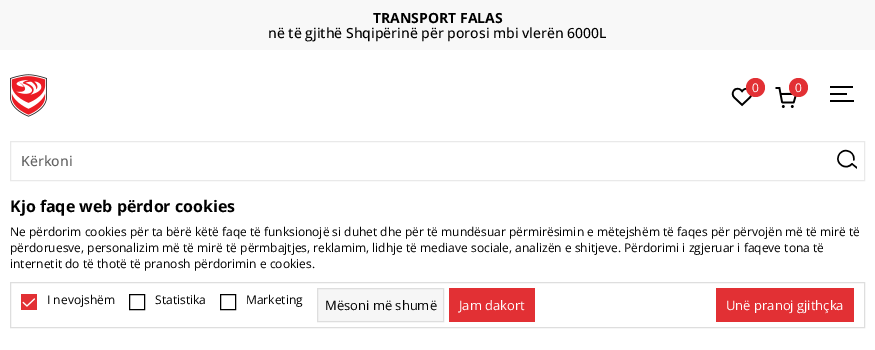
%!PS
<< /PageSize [875 350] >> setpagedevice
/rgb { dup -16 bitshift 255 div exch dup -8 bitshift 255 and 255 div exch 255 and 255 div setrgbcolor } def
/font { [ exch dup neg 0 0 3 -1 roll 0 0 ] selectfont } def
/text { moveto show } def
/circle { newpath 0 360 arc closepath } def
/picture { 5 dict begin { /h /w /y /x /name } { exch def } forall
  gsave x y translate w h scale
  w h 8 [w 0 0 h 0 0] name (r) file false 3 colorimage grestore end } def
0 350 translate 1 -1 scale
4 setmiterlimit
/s1 { /OpenSans-Bold 14 font 16#000000 rgb } def
/s2 { /OpenSans-Medium 14 font 16#000000 rgb } def
/s3 { /OpenSans-Regular 12 font 16#FFFFFF rgb } def
/s4 { /OpenSans-Medium 14 font 16#636363 rgb } def
/s5 { /OpenSans-Bold 16 font 16#000000 rgb } def
/s6 { /OpenSans-Regular 12 font 16#000000 rgb } def
/s7 { /OpenSans-Regular 13 font 16#000000 rgb } def
/s8 { /OpenSans-Regular 13 font 16#FFFFFF rgb } def
16#FFFFFF rgb
0 0 875 350 rectfill
16#F8F8F8 rgb
0 0 875 50 rectfill
s1
(TRANSPORT FALAS) 373 23 text
s2
(në të gjithë Shqipërinë për porosi mbi vlerën 6000L) 268 38 text
(pic1.raw) 10 74 37 43 picture
(pic2.raw) 731 87 21 20 picture
16#E23034 rgb
755.5 87.5 9.5 circle fill
s3
(0) 752 92 text
(pic3.raw) 775 87 22 21 picture
16#E23034 rgb
798.5 87.5 9.5 circle fill
s3
(0) 795 92 text
16#000000 rgb
830 93 17 2 rectfill
830 86 23 2 rectfill
830 100 24 2 rectfill
16#E9E9E9 rgb
10.5 141.5 854 39 rectstroke
s4
(Kërkoni) 21 166 text
(pic4.raw) 837 149 20 20 picture
s5
(Kjo faqe web përdor cookies) 10 212 text
s6
(Ne përdorim cookies për ta bërë këtë faqe të funksionojë si duhet dhe për të mundësuar përmirësimin e mëtejshëm të faqes për përvojën më të mirë të) 10 236 text
(përdoruesve, personalizim më të mirë të përmbajtjes, reklamim, lidhje të mediave sociale, analizën e shitjeve. Përdorimi i zgjeruar i faqeve tona të) 10 252 text
(internetit do të thotë të pranosh përdorimin e cookies.) 10 268 text
16#DEDEDE rgb
10.5 282.5 854 45 rectstroke
16#E23034 rgb
21 294 16 16 rectfill
(pic5.raw) 22 298 13 9 picture
s6
(I nevojshëm) 47 304 text
129.5 294.5 15 15 rectstroke
(Statistika) 155 304 text
220.5 294.5 15 15 rectstroke
(Marketing) 246 304 text
16#F6F6F6 rgb
317.5 288.5 moveto 443.5 288.5 lineto 443.5 321.5 lineto 317.5 321.5 lineto closepath gsave fill grestore
16#DEDEDE rgb
stroke
s7
(Mësoni më shumë) 325 310 text
16#E23034 rgb
449 288 86 34 rectfill
s8
(Jam dakort) 459 310 text
16#E23034 rgb
716 288 138 34 rectfill
s8
(Unë pranoj gjithçka) 726 310 text
showpage
